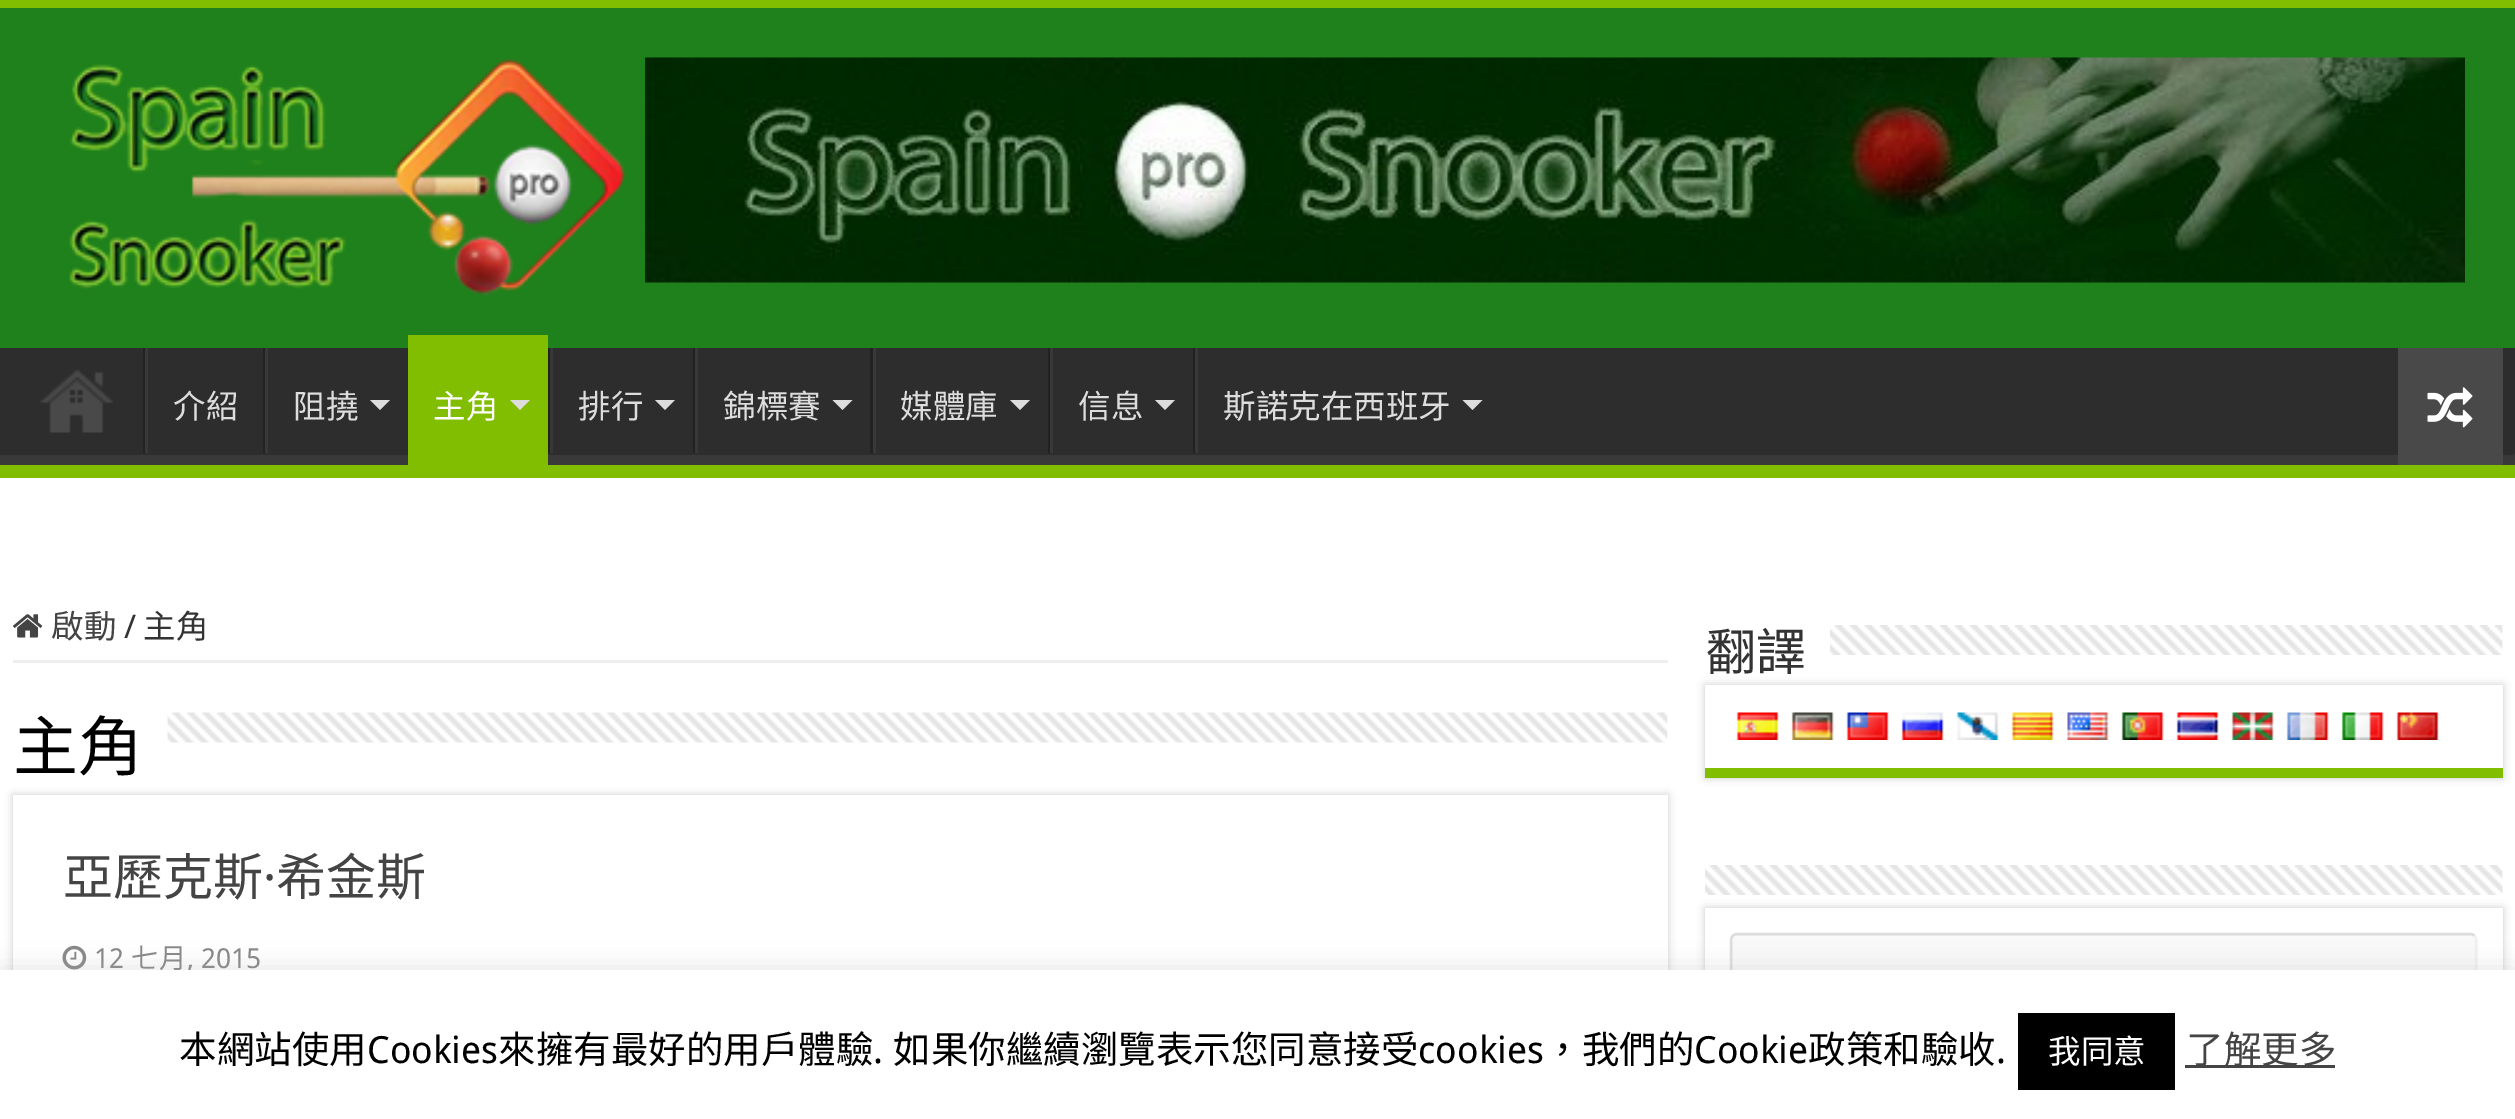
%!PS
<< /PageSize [2515 1119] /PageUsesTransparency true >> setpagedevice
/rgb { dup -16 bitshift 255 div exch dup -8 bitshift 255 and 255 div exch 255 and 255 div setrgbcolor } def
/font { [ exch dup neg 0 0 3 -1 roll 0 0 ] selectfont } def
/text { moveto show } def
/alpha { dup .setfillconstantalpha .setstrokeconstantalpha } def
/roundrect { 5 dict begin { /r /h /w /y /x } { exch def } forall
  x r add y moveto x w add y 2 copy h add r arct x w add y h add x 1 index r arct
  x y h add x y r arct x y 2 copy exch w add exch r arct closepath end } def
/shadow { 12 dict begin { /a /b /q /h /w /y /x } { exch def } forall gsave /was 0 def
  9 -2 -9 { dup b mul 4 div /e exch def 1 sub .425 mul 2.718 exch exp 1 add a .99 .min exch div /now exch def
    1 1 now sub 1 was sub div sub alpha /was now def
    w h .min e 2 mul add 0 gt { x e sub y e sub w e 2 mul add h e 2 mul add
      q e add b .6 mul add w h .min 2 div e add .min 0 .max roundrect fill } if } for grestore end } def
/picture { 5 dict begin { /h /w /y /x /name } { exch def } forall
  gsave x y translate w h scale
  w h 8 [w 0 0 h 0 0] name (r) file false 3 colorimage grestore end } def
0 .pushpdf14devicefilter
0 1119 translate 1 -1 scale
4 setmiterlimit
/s1 { /NotoSansCJKTC-Regular 32.5 font 16#DDDDDD rgb } def
/s2 { /NotoSansCJKTC-Regular 32.5 font 16#FFFFFF rgb } def
/s3 { /NotoSansCJKTC-Regular 32.5 font 16#444444 rgb } def
/s4 { /DroidSans-Regular 32.5 font 16#333333 rgb } def
/s5 { /NotoSansCJKTC-Regular 32.5 font 16#333333 rgb } def
/s6 { /NotoSansCJKTC-Regular 65 font 16#000000 rgb } def
/s7 { /NotoSansCJKTC-Regular 50 font 16#444444 rgb } def
/s8 { /DroidSans-Regular 50 font 16#444444 rgb } def
/s9 { /DroidSans-Regular 27.5 font 16#888888 rgb } def
/s10 { /NotoSansCJKTC-Regular 27.5 font 16#888888 rgb } def
/s11 { /NotoSansCJKTC-Regular 50 font 16#333333 rgb } def
/s12 { /NotoSansCJKTC-Regular 37.5 font 16#000000 rgb } def
/s13 { /DroidSans-Regular 37.5 font 16#000000 rgb } def
/s14 { /NotoSansCJKTC-Regular 37.5 font 16#444444 rgb } def
16#FFFFFF rgb
0 0 2515 1119 rectfill
16#1F811C rgb
0 8 2515 340 rectfill
16#81BD00 rgb
0 0 2515 8 rectfill
(pic1.raw) 69 59 557 237 picture
(pic2.raw) 645 57 1820 226 picture
16#2D2D2D rgb
0 348 2515 107 rectfill
gsave
0 348 2515 117 rectclip
16#393939 rgb
-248 100 moveto 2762 100 lineto 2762 712 lineto -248 712 lineto closepath -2 332 moveto 2512 332 lineto 2514 332 2515 334 2515 335 curveto 2515 452 lineto 2515 454 2514 455 2512 455 curveto -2 455 lineto -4 455 -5 454 -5 452 curveto -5 335 lineto -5 334 -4 332 -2 332 curveto closepath eofill
grestore
16#81BD00 rgb
0 465 2515 13 rectfill
(pic3.raw) 40 369 73 64 picture
16#222222 rgb
143 348 2 105 rectfill
16#383838 rgb
145 348 3 105 rectfill
s1
(介紹) 173 418 text
16#222222 rgb
263 348 2 105 rectfill
16#383838 rgb
265 348 3 105 rectfill
s1
(阻撓) 293 418 text
370 400 moveto 390 400 lineto 380 410 lineto closepath fill
16#81BD00 rgb
408 335 140 130 rectfill
s2
(主角) 433 418 text
16#DDDDDD rgb
510 400 moveto 530 400 lineto 520 410 lineto closepath fill
16#222222 rgb
548 348 2 105 rectfill
16#383838 rgb
550 348 3 105 rectfill
s1
(排行) 578 418 text
655 400 moveto 675 400 lineto 665 410 lineto closepath fill
16#222222 rgb
693 348 2 105 rectfill
16#383838 rgb
695 348 3 105 rectfill
s1
(錦標賽) 723 418 text
832.5 400 moveto 852.5 400 lineto 842.5 410 lineto closepath fill
16#222222 rgb
870 348 3 105 rectfill
16#383838 rgb
873 348 3 105 rectfill
s1
(媒體庫) 900 418 text
1010 400 moveto 1030 400 lineto 1020 410 lineto closepath fill
16#222222 rgb
1048 348 2 105 rectfill
16#383838 rgb
1050 348 3 105 rectfill
s1
(信息) 1078 418 text
1155 400 moveto 1175 400 lineto 1165 410 lineto closepath fill
16#222222 rgb
1193 348 2 105 rectfill
16#383838 rgb
1195 348 3 105 rectfill
s1
(斯諾克在西班牙) 1223 418 text
1462.5 400 moveto 1482.5 400 lineto 1472.5 410 lineto closepath fill
16#494949 rgb
2398 348 105 117 rectfill
(pic4.raw) 2427 387 46 41 picture
16#EEEEEE rgb
13 660 1655 3 rectfill
(pic5.raw) 13 614 30 24 picture
s3
(啟動) 51 638 text
s4
(/) 124 638 text
s5
(主角) 143 638 text
s6
(主角) 13 770 text
(pic6.raw) 167 712 1501 31 picture
16#CACACA rgb
13 795 1655 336 0 4 1 shadow
16#FFFFFF rgb
13 795 1655 175 rectfill
s7
(亞歷克斯) 63 895 text
s8
(·) 263 895 text
s7
(希金斯) 276 895 text
(pic7.raw) 62 945 25 25 picture
s9
(12) 94 968 text
s10
(七月) 131 968 text
s9
(, 2015) 187 968 text
16#CACACA rgb
1705 685 798 93 0 4 1 shadow
s11
(翻譯) 1706 670 text
(pic8.raw) 1830 625 673 30 picture
16#FFFFFF rgb
1705 685 798 83 rectfill
16#81BD00 rgb
1705 768 798 10 rectfill
(pic9.raw) 1736 712 43 28 picture
(pic10.raw) 1791 712 43 28 picture
(pic11.raw) 1846 712 43 28 picture
(pic12.raw) 1901 712 43 28 picture
(pic13.raw) 1956 712 43 28 picture
(pic14.raw) 2011 712 43 28 picture
(pic15.raw) 2067 712 42 28 picture
(pic16.raw) 2121 712 43 28 picture
(pic17.raw) 2176 712 43 28 picture
(pic18.raw) 2231 712 43 28 picture
(pic19.raw) 2286 712 43 28 picture
(pic20.raw) 2341 712 43 28 picture
(pic21.raw) 2396 712 43 28 picture
(pic22.raw) 1705 865 798 30 picture
16#CACACA rgb
1705 908 798 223 0 4 1 shadow
16#FFFFFF rgb
1705 908 798 62 rectfill
16#F9F9F9 rgb
1730 933 748 82 8 roundrect fill
16#F1F1F1 rgb
2.5 setlinewidth
2474.5 935.5 moveto 2475.5 937 2476 938.5 2476 940 curveto 2476 1007.5 lineto 2476 1009 2475.5 1010.5 2474.5 1012 curveto 2473 1013 2471.5 1014 2470 1014 curveto 1737.5 1014 lineto 1736 1014 1734.5 1013 1733 1012 curveto stroke
16#DDDDDD rgb
1733 1012 moveto 1732 1010.5 1731 1009 1731 1007.5 curveto 1731 940 lineto 1731 938.5 1732 937 1733 935.5 curveto 1734.5 934.5 1736 934 1737.5 934 curveto 2470 934 lineto 2471.5 934 2473 934.5 2474.5 935.5 curveto stroke
16#ACABAB rgb
0 968 2515 150 0 12.5 0.3 shadow
16#FFFFFF rgb
0 970 2515 149 rectfill
s12
(本網站使用) 179 1063 text
s13
(Cookies) 367 1063 text
s12
(來擁有最好的用戶體驗) 498 1063 text
s13
(.) 873 1063 text
s12
(如果你繼續瀏覽表示您同意接受) 893 1063 text
s13
(cookies) 1418 1063 text
s12
(，我們的) 1544 1063 text
s13
(Cookie) 1694 1063 text
s12
(政策和驗收) 1808 1063 text
s13
(.) 1996 1063 text
2018 1013 157 77 rectfill
s2
(我同意) 2048 1063 text
16#444444 rgb
2185 1065 150 3 rectfill
s14
(了解更多) 2186 1063 text
.poppdf14devicefilter showpage
